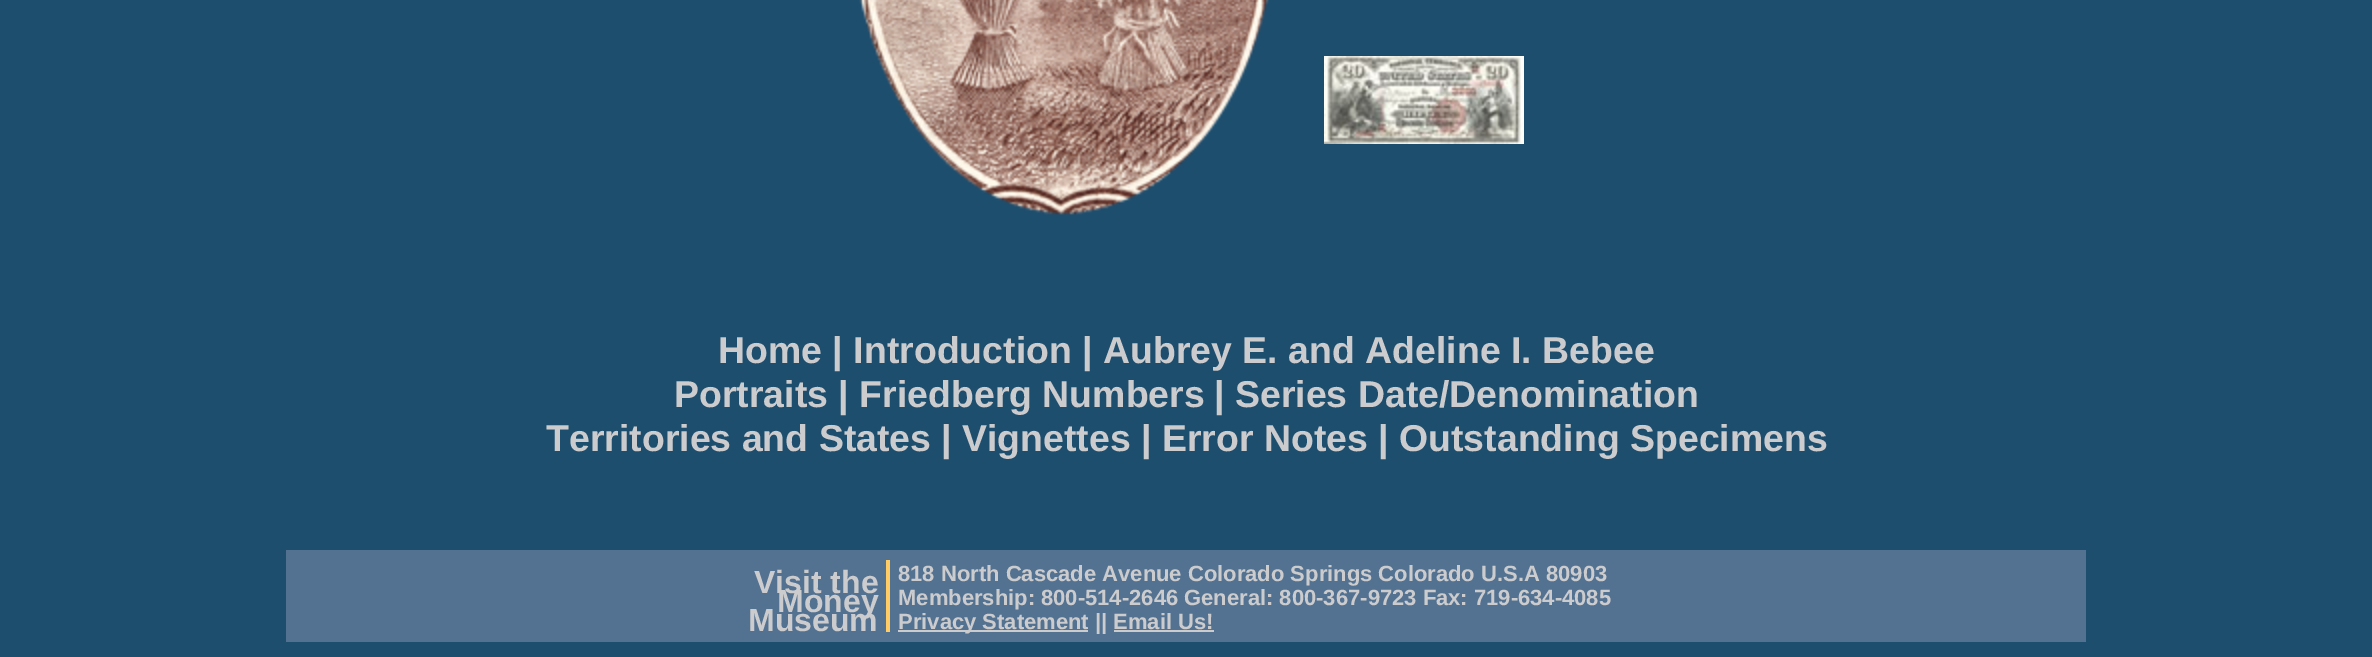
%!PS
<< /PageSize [2372 657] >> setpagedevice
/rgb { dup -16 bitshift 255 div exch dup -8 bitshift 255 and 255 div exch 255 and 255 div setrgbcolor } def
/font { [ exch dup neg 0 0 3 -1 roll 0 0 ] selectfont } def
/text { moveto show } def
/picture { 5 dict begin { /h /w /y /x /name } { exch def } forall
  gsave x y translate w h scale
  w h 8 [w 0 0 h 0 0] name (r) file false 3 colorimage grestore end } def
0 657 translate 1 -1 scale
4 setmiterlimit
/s1 { /LiberationSans-Bold 37.45 font 16#CCCCCE rgb } def
/s2 { /LiberationSans-Bold 32 font 16#CCCCCE rgb } def
/s3 { /LiberationSans-Bold 22 font 16#CCCCCE rgb } def
16#1D4E6E rgb
0 0 2372 657 rectfill
(pic1.raw) 859 0 410 215 picture
(pic2.raw) 1324 56 200 88 picture
s1
(Home | Introduction | Aubrey E. and Adeline I. Bebee) 718 363 text
(Portraits | Friedberg Numbers) 674 407 text
(| Series Date/Denomination) 1214 407 text
(Territories and States) 546 451 text
(| Vignettes | Error Notes | Outstanding Specimens) 941 451 text
16#537291 rgb
286 550 1800 92 rectfill
s2
(Visit the) 754 593 text
(Money) 777 612 text
(Museum) 748 631 text
16#FFCC66 rgb
886 560 4 72 rectfill
s3
(818 North Cascade Avenue Colorado Springs Colorado U.S.A 80903) 898 581 text
(Membership: 800-514-2646 General: 800-367-9723 Fax: 719-634-4085) 898 605 text
898 630 190 2 rectfill
(Privacy Statement || Email Us!) 898 629 text
1114 630 100 2 rectfill
showpage
